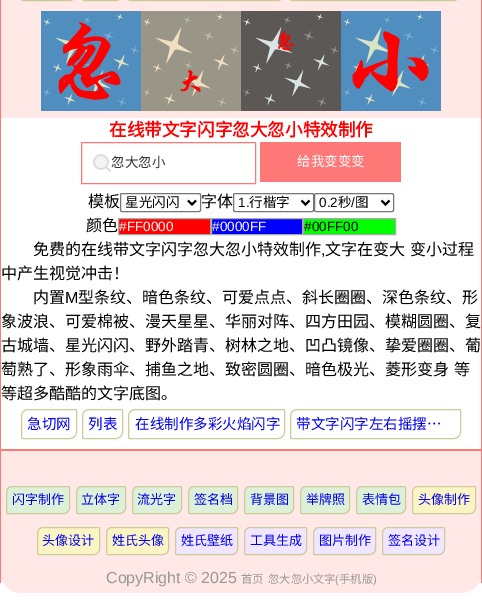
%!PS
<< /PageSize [482 615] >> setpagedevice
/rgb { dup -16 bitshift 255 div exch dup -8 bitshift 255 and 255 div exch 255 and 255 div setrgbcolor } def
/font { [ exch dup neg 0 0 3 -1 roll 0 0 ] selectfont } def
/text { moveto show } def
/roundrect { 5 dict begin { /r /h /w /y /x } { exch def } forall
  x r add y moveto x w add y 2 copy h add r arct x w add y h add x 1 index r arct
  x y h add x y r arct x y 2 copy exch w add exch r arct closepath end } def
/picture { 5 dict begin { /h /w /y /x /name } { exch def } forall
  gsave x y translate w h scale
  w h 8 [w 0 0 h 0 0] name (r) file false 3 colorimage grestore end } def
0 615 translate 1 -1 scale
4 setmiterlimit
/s1 { /NotoSansCJKSC-Bold 17.6 font 16#FF0000 rgb } def
/s2 { /NotoSansCJKSC-Regular 13.5 font 16#333333 rgb } def
/s3 { /NotoSansCJKSC-Regular 13.5 font 16#FFFFFF rgb } def
/s4 { /NotoSansCJKSC-Regular 16 font 16#000000 rgb } def
/s5 { /NotoSansCJKSC-Regular 13.5 font 16#000000 rgb } def
/s6 { /LiberationSans-Regular 13.5 font 16#000000 rgb } def
/s7 { /LiberationSans-Regular 13.5 font 16#FFFFFF rgb } def
/s8 { /LiberationSans-Regular 16 font 16#000000 rgb } def
/s9 { /NotoSansCJKSC-Regular 14.5 font 16#0000EE rgb } def
/s10 { /NotoSansCJKSC-Regular 13 font 16#0000EE rgb } def
/s11 { /LiberationSans-Regular 16 font 16#999999 rgb } def
/s12 { /NotoSansCJKSC-Regular 11.25 font 16#999999 rgb } def
/s13 { /LiberationSans-Regular 11.25 font 16#999999 rgb } def
16#FFFFFF rgb
0 0 482 615 rectfill
16#FFE8E6 rgb
1 0 480 118 rectfill
16#FE7878 rgb
481 0 1 450 rectfill
0 0 1 118 rectfill
16#CCCC99 rgb
28 -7.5 moveto 75 -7.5 lineto 76 -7.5 76.5 -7 76.5 -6 curveto 76.5 -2.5 73.5 0.5 70 0.5 curveto 23 0.5 lineto 22 0.5 21.5 0 21.5 -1 curveto 21.5 -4.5 24.5 -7.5 28 -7.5 curveto closepath stroke
89 -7.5 moveto 121 -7.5 lineto 122 -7.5 122.5 -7 122.5 -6 curveto 122.5 -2.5 119.5 0.5 116 0.5 curveto 84 0.5 lineto 83 0.5 82.5 0 82.5 -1 curveto 82.5 -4.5 85.5 -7.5 89 -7.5 curveto closepath stroke
135 -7.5 moveto 283 -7.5 lineto 284 -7.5 284.5 -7 284.5 -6 curveto 284.5 -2.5 281.5 0.5 278 0.5 curveto 130 0.5 lineto 129 0.5 128.5 0 128.5 -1 curveto 128.5 -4.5 131.5 -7.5 135 -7.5 curveto closepath stroke
297 -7.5 moveto 459 -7.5 lineto 460 -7.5 460.5 -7 460.5 -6 curveto 460.5 -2.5 457.5 0.5 454 0.5 curveto 292 0.5 lineto 291 0.5 290.5 0 290.5 -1 curveto 290.5 -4.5 293.5 -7.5 297 -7.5 curveto closepath stroke
(pic1.raw) 41 11 400 100 picture
16#FE7878 rgb
0 449 482 1 rectfill
0 118 1 332 rectfill
s1
(在线带文字闪字忽大忽小特效制作) 109 136 text
(pic2.raw) 93 154 18 18 picture
16#FE7878 rgb
81.5 142.5 174 41 rectstroke
s2
(忽大忽小) 111 167 text
16#FE7878 rgb
260 142 141 40 rectfill
s3
(给我变变变) 297 166 text
s4
(模板) 88 207 text
16#767676 rgb
120.5 193.5 80 18 1.5 roundrect stroke
16#000000 rgb
2 setlinewidth
188 200.5 moveto 192 204.5 lineto 196 200.5 lineto stroke
s5
(星光闪闪) 125 207 text
s4
(字体) 201 207 text
16#767676 rgb
1 setlinewidth
233.5 193.5 80 18 1.5 roundrect stroke
16#000000 rgb
2 setlinewidth
301.5 200.5 moveto 305.5 204.5 lineto 309.5 200.5 lineto stroke
s6
(1.) 238 207 text
s5
(行楷字) 249 207 text
16#767676 rgb
1 setlinewidth
314.5 193.5 79 18 1.5 roundrect stroke
16#000000 rgb
2 setlinewidth
381.5 200.5 moveto 385.5 204.5 lineto 389.5 200.5 lineto stroke
s6
(0.2) 319 207 text
s5
(秒) 338 207 text
s6
(/) 351 207 text
s5
(图) 355 207 text
s4
(颜色) 86 231 text
16#FF0000 rgb
118.5 218.5 moveto 210.5 218.5 lineto 210.5 234.5 lineto 118.5 234.5 lineto closepath gsave fill grestore
16#AAAAAA rgb
1 setlinewidth
stroke
s7
(#FF0000) 119 231 text
16#0000FF rgb
211.5 218.5 moveto 302.5 218.5 lineto 302.5 234.5 lineto 211.5 234.5 lineto closepath gsave fill grestore
16#AAAAAA rgb
stroke
s7
(#0000FF) 212 231 text
16#00FF00 rgb
303.5 218.5 moveto 395.5 218.5 lineto 395.5 234.5 lineto 303.5 234.5 lineto closepath gsave fill grestore
16#AAAAAA rgb
stroke
s6
(#00FF00) 304 231 text
s4
(免费的在线带文字闪字忽大忽小特效制作) 33 255 text
s8
(,) 321 255 text
/NotoSansCJKSC-Regular 16 font
325 255 moveto 1 0 32 (文字在变大 变小过程) widthshow
(中产生视觉冲击！) 1 279 text
(内置) 33 303 text
s8
(M) 65 303 text
s4
(型条纹、暗色条纹、可爱点点、斜长圈圈、深色条纹、形) 78 303 text
(象波浪、可爱棉被、漫天星星、华丽对阵、四方田园、模糊圆圈、复) 1 327 text
(古城墙、星光闪闪、野外踏青、树林之地、凹凸镜像、挚爱圈圈、葡) 1 351 text
1 375 moveto 1 0 32 (萄熟了、形象雨伞、捕鱼之地、致密圆圈、暗色极光、菱形变身 等) widthshow
(等超多酷酷的文字底图。) 1 399 text
16#CCCC99 rgb
28 409.5 moveto 75 409.5 lineto 76 409.5 76.5 410 76.5 411 curveto 76.5 432 lineto 76.5 435.5 73.5 438.5 70 438.5 curveto 23 438.5 lineto 22 438.5 21.5 438 21.5 437 curveto 21.5 416 lineto 21.5 412.5 24.5 409.5 28 409.5 curveto closepath stroke
s9
(急切网) 27 429 text
16#CCCC99 rgb
89 409.5 moveto 121 409.5 lineto 122 409.5 122.5 410 122.5 411 curveto 122.5 432 lineto 122.5 435.5 119.5 438.5 116 438.5 curveto 84 438.5 lineto 83 438.5 82.5 438 82.5 437 curveto 82.5 416 lineto 82.5 412.5 85.5 409.5 89 409.5 curveto closepath stroke
s9
(列表) 88 429 text
16#CCCC99 rgb
135 409.5 moveto 283 409.5 lineto 284 409.5 284.5 410 284.5 411 curveto 284.5 432 lineto 284.5 435.5 281.5 438.5 278 438.5 curveto 130 438.5 lineto 129 438.5 128.5 438 128.5 437 curveto 128.5 416 lineto 128.5 412.5 131.5 409.5 135 409.5 curveto closepath stroke
s9
(在线制作多彩火焰闪字) 135 429 text
16#CCCC99 rgb
297 409.5 moveto 459 409.5 lineto 460 409.5 460.5 410 460.5 411 curveto 460.5 432 lineto 460.5 435.5 457.5 438.5 454 438.5 curveto 292 438.5 lineto 291 438.5 290.5 438 290.5 437 curveto 290.5 416 lineto 290.5 412.5 293.5 409.5 297 409.5 curveto closepath stroke
s9
(带文字闪字左右摇摆…) 296 429 text
16#FFE8E6 rgb
0 450 moveto 482 450 lineto 482 572 lineto 482 583.5 472.5 593 461 593 curveto 21 593 lineto 9.5 593 0 583.5 0 572 curveto closepath fill
16#FE7878 rgb
0 450 482 1 rectfill
481 450 1 133 rectfill
0 450 1 133 rectfill
16#DDF1D8 rgb
12 486.5 moveto 68.5 486.5 lineto 69 486.5 69.5 487 69.5 487.5 curveto 69.5 508 lineto 69.5 511 67 513.5 64 513.5 curveto 7.5 513.5 lineto 7 513.5 6.5 513 6.5 512.5 curveto 6.5 492 lineto 6.5 489 9 486.5 12 486.5 curveto closepath gsave fill grestore
16#CCCC99 rgb
stroke
s10
(闪字制作) 12 504 text
16#DDF1D8 rgb
82 486.5 moveto 124.5 486.5 lineto 125 486.5 125.5 487 125.5 487.5 curveto 125.5 508 lineto 125.5 511 123 513.5 120 513.5 curveto 77.5 513.5 lineto 77 513.5 76.5 513 76.5 512.5 curveto 76.5 492 lineto 76.5 489 79 486.5 82 486.5 curveto closepath gsave fill grestore
16#CCCC99 rgb
stroke
s10
(立体字) 81 504 text
16#DDF1D8 rgb
138 486.5 moveto 180.5 486.5 lineto 181 486.5 181.5 487 181.5 487.5 curveto 181.5 508 lineto 181.5 511 179 513.5 176 513.5 curveto 133.5 513.5 lineto 133 513.5 132.5 513 132.5 512.5 curveto 132.5 492 lineto 132.5 489 135 486.5 138 486.5 curveto closepath gsave fill grestore
16#CCCC99 rgb
stroke
s10
(流光字) 137 504 text
16#DDF1D8 rgb
194 486.5 moveto 236.5 486.5 lineto 237 486.5 237.5 487 237.5 487.5 curveto 237.5 508 lineto 237.5 511 235 513.5 232 513.5 curveto 189.5 513.5 lineto 189 513.5 188.5 513 188.5 512.5 curveto 188.5 492 lineto 188.5 489 191 486.5 194 486.5 curveto closepath gsave fill grestore
16#CCCC99 rgb
stroke
s10
(签名档) 194 504 text
16#DDF1D8 rgb
250 486.5 moveto 292.5 486.5 lineto 293 486.5 293.5 487 293.5 487.5 curveto 293.5 508 lineto 293.5 511 291 513.5 288 513.5 curveto 245.5 513.5 lineto 245 513.5 244.5 513 244.5 512.5 curveto 244.5 492 lineto 244.5 489 247 486.5 250 486.5 curveto closepath gsave fill grestore
16#CCCC99 rgb
stroke
s10
(背景图) 250 504 text
16#DDF1D8 rgb
306 486.5 moveto 348.5 486.5 lineto 349 486.5 349.5 487 349.5 487.5 curveto 349.5 508 lineto 349.5 511 347 513.5 344 513.5 curveto 301.5 513.5 lineto 301 513.5 300.5 513 300.5 512.5 curveto 300.5 492 lineto 300.5 489 303 486.5 306 486.5 curveto closepath gsave fill grestore
16#CCCC99 rgb
stroke
s10
(举牌照) 306 504 text
16#DDF1D8 rgb
362 486.5 moveto 404.5 486.5 lineto 405 486.5 405.5 487 405.5 487.5 curveto 405.5 508 lineto 405.5 511 403 513.5 400 513.5 curveto 357.5 513.5 lineto 357 513.5 356.5 513 356.5 512.5 curveto 356.5 492 lineto 356.5 489 359 486.5 362 486.5 curveto closepath gsave fill grestore
16#CCCC99 rgb
stroke
s10
(表情包) 362 504 text
16#FBF5C6 rgb
418 486.5 moveto 474.5 486.5 lineto 475 486.5 475.5 487 475.5 487.5 curveto 475.5 508 lineto 475.5 511 473 513.5 470 513.5 curveto 413.5 513.5 lineto 413 513.5 412.5 513 412.5 512.5 curveto 412.5 492 lineto 412.5 489 415 486.5 418 486.5 curveto closepath gsave fill grestore
16#CCCC99 rgb
stroke
s10
(头像制作) 418 504 text
16#FBF5C6 rgb
43 527.5 moveto 98.5 527.5 lineto 99 527.5 99.5 528 99.5 528.5 curveto 99.5 549 lineto 99.5 552 97 554.5 94 554.5 curveto 38.5 554.5 lineto 38 554.5 37.5 554 37.5 553.5 curveto 37.5 533 lineto 37.5 530 40 527.5 43 527.5 curveto closepath gsave fill grestore
16#CCCC99 rgb
stroke
s10
(头像设计) 42 545 text
16#FBF5C6 rgb
112 527.5 moveto 167.5 527.5 lineto 168 527.5 168.5 528 168.5 528.5 curveto 168.5 549 lineto 168.5 552 166 554.5 163 554.5 curveto 107.5 554.5 lineto 107 554.5 106.5 554 106.5 553.5 curveto 106.5 533 lineto 106.5 530 109 527.5 112 527.5 curveto closepath gsave fill grestore
16#CCCC99 rgb
stroke
s10
(姓氏头像) 112 545 text
16#F1E6FF rgb
181 527.5 moveto 236.5 527.5 lineto 237 527.5 237.5 528 237.5 528.5 curveto 237.5 549 lineto 237.5 552 235 554.5 232 554.5 curveto 176.5 554.5 lineto 176 554.5 175.5 554 175.5 553.5 curveto 175.5 533 lineto 175.5 530 178 527.5 181 527.5 curveto closepath gsave fill grestore
16#CCCC99 rgb
stroke
s10
(姓氏壁纸) 181 545 text
16#F1E6FF rgb
250 527.5 moveto 305.5 527.5 lineto 306 527.5 306.5 528 306.5 528.5 curveto 306.5 549 lineto 306.5 552 304 554.5 301 554.5 curveto 245.5 554.5 lineto 245 554.5 244.5 554 244.5 553.5 curveto 244.5 533 lineto 244.5 530 247 527.5 250 527.5 curveto closepath gsave fill grestore
16#CCCC99 rgb
stroke
s10
(工具生成) 250 545 text
16#F1E6FF rgb
319 527.5 moveto 374.5 527.5 lineto 375 527.5 375.5 528 375.5 528.5 curveto 375.5 549 lineto 375.5 552 373 554.5 370 554.5 curveto 314.5 554.5 lineto 314 554.5 313.5 554 313.5 553.5 curveto 313.5 533 lineto 313.5 530 316 527.5 319 527.5 curveto closepath gsave fill grestore
16#CCCC99 rgb
stroke
s10
(图片制作) 319 545 text
16#F1E6FF rgb
388 527.5 moveto 443.5 527.5 lineto 444 527.5 444.5 528 444.5 528.5 curveto 444.5 549 lineto 444.5 552 442 554.5 439 554.5 curveto 383.5 554.5 lineto 383 554.5 382.5 554 382.5 553.5 curveto 382.5 533 lineto 382.5 530 385 527.5 388 527.5 curveto closepath gsave fill grestore
16#CCCC99 rgb
stroke
s10
(签名设计) 388 545 text
s11
(CopyRight © 2025) 106 583 text
s12
(首页) 241 583 text
(忽大忽小文字) 268 583 text
s13
(\() 335 583 text
s12
(手机版) 339 583 text
s13
(\)) 373 583 text
showpage
